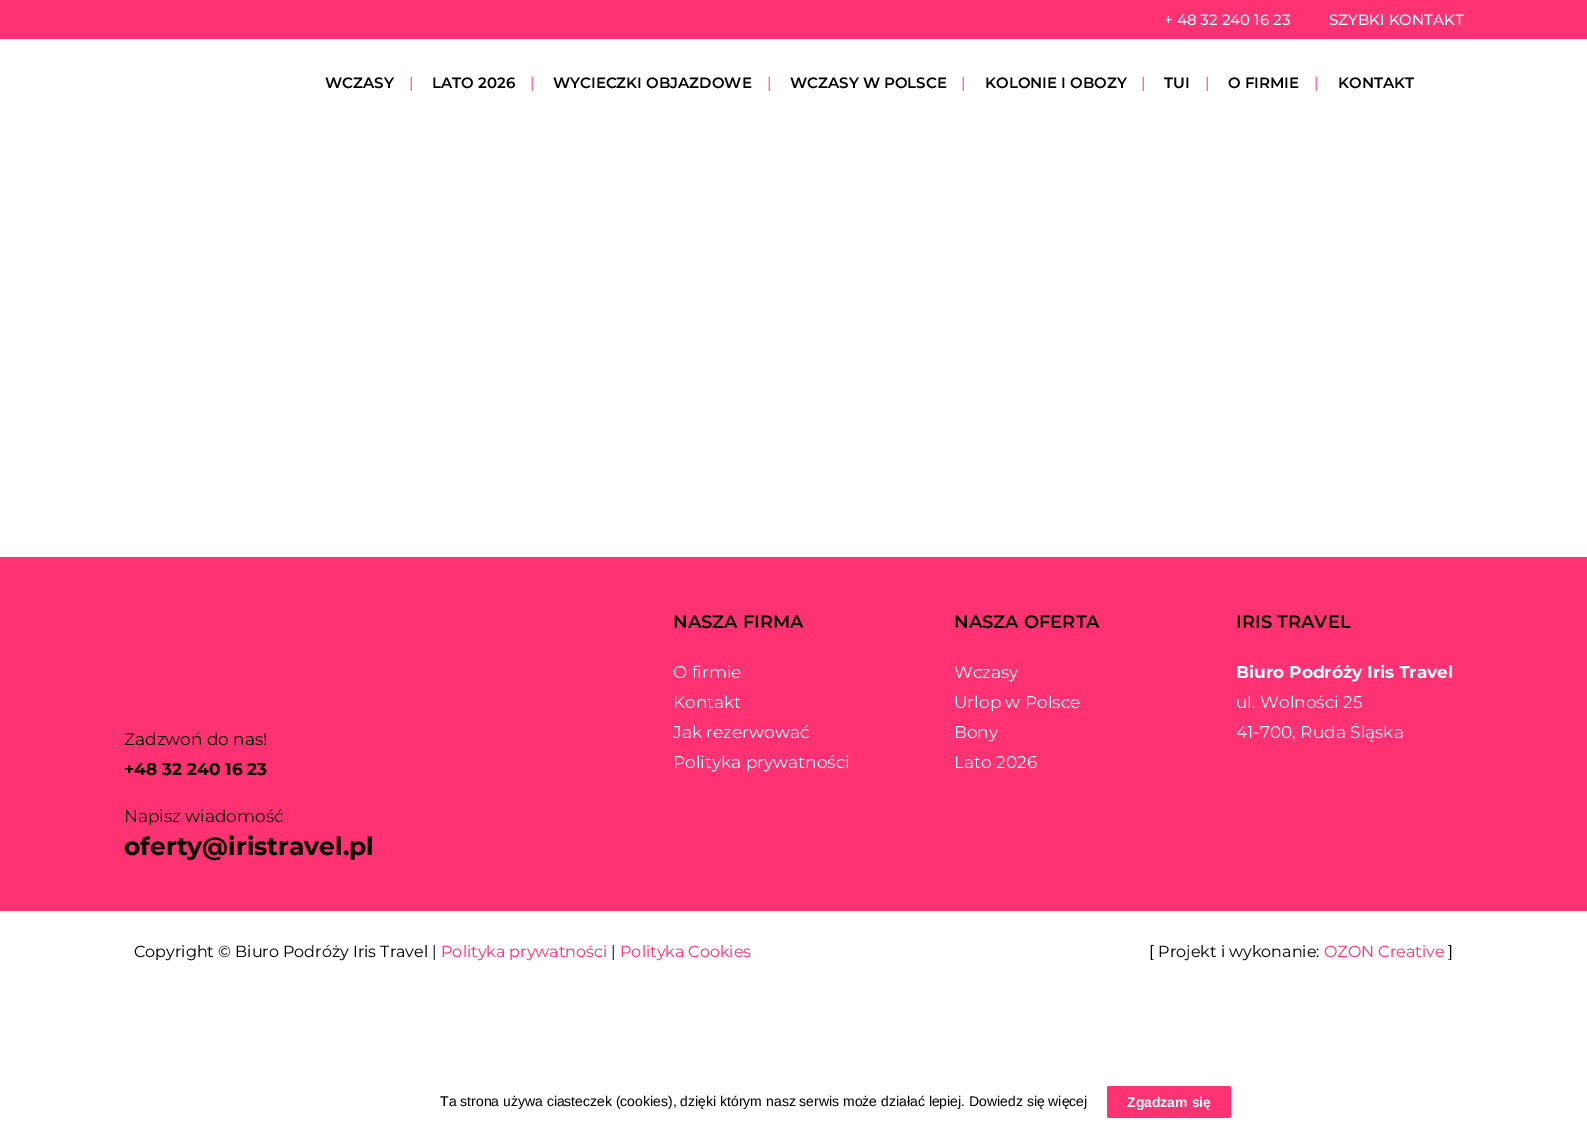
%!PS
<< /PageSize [1587 1133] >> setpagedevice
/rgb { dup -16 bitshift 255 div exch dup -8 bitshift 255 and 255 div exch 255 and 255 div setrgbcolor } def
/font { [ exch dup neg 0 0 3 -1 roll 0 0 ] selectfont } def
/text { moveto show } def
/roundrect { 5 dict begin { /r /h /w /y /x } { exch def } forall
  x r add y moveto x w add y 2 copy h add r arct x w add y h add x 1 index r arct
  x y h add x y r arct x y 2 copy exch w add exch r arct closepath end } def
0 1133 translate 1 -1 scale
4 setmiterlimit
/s1 { /Montserrat-Medium 15 font 16#FFFFFF rgb } def
/s2 { /Montserrat-SemiBold 15 font 16#000000 rgb } def
/s3 { /Montserrat-Regular 15 font 16#FF3273 rgb } def
/s4 { /Montserrat-SemiBold 18 font 16#000000 rgb } def
/s5 { /Montserrat-Regular 17 font 16#FFFFFF rgb } def
/s6 { /Montserrat-Bold 17 font 16#FFFFFF rgb } def
/s7 { /Montserrat-Regular 17 font 16#000000 rgb } def
/s8 { /Montserrat-Bold 17 font 16#000000 rgb } def
/s9 { /Montserrat-Bold 25 font 16#000000 rgb } def
/s10 { /Montserrat-Regular 16 font 16#000000 rgb } def
/s11 { /Montserrat-Regular 16 font 16#FF3273 rgb } def
/s12 { /LiberationSans-Regular 14 font 16#000000 rgb } def
/s13 { /LiberationSans-Bold 14 font 16#FFFFFF rgb } def
16#FFFFFF rgb
0 0 1587 1133 rectfill
16#FF3273 rgb
0 0 1587 39 rectfill
s1
(+ 48 32 240 16 23) 1164 25 text
(SZYBKI KONTAKT) 1329 25 text
s2
(WCZASY) 325 88 text
s3
(|) 409 88 text
s2
(LATO 2026) 432 88 text
s3
(|) 530 88 text
s2
(WYCIECZKI OBJAZDOWE) 553 88 text
s3
(|) 767 88 text
s2
(WCZASY W POLSCE) 790 88 text
s3
(|) 961 88 text
s2
(KOLONIE I OBOZY) 985 88 text
s3
(|) 1141 88 text
s2
(TUI) 1164 88 text
s3
(|) 1205 88 text
s2
(O FIRMIE) 1228 88 text
s3
(|) 1314 88 text
s2
(KONTAKT) 1338 88 text
16#FF3273 rgb
0 557 1587 354 rectfill
s4
(NASZA FIRMA) 673 628 text
s5
(O firmie) 673 678 text
(Kontakt) 673 708 text
(Jak rezerwować) 673 738 text
(Polityka prywatności) 673 768 text
s4
(NASZA OFERTA) 954 628 text
s5
(Wczasy) 954 678 text
(Urlop w Polsce) 954 708 text
(Bony) 954 738 text
(Lato 2026) 954 768 text
s4
(IRIS TRAVEL) 1236 628 text
s6
(Biuro Podróży Iris Travel) 1236 678 text
s5
(ul. Wolności 25) 1236 708 text
(41-700, Ruda Śląska) 1236 738 text
s7
(Zadzwoń do nas!) 124 745 text
s8
(+48 32 240 16 23) 124 775 text
s7
(Napisz wiadomość) 124 822 text
s9
(oferty@iristravel.pl) 124 855 text
s10
(Copyright © Biuro Podróży Iris Travel |) 134 957 text
s11
(Polityka prywatności) 441 957 text
s10
(|) 611 957 text
s11
(Polityka Cookies) 620 957 text
s10
([ Projekt i wykonanie:) 1149 957 text
s11
(OZON Creative) 1324 957 text
s10
(]) 1448 957 text
s12
(Ta strona używa ciasteczek \(cookies\), dzięki którym nasz serwis może działać lepiej. Dowiedz się więcej) 440 1106 text
16#FF3273 rgb
1107 1086 124 32 2 roundrect fill
s13
(Zgadzam się) 1127 1107 text
showpage
